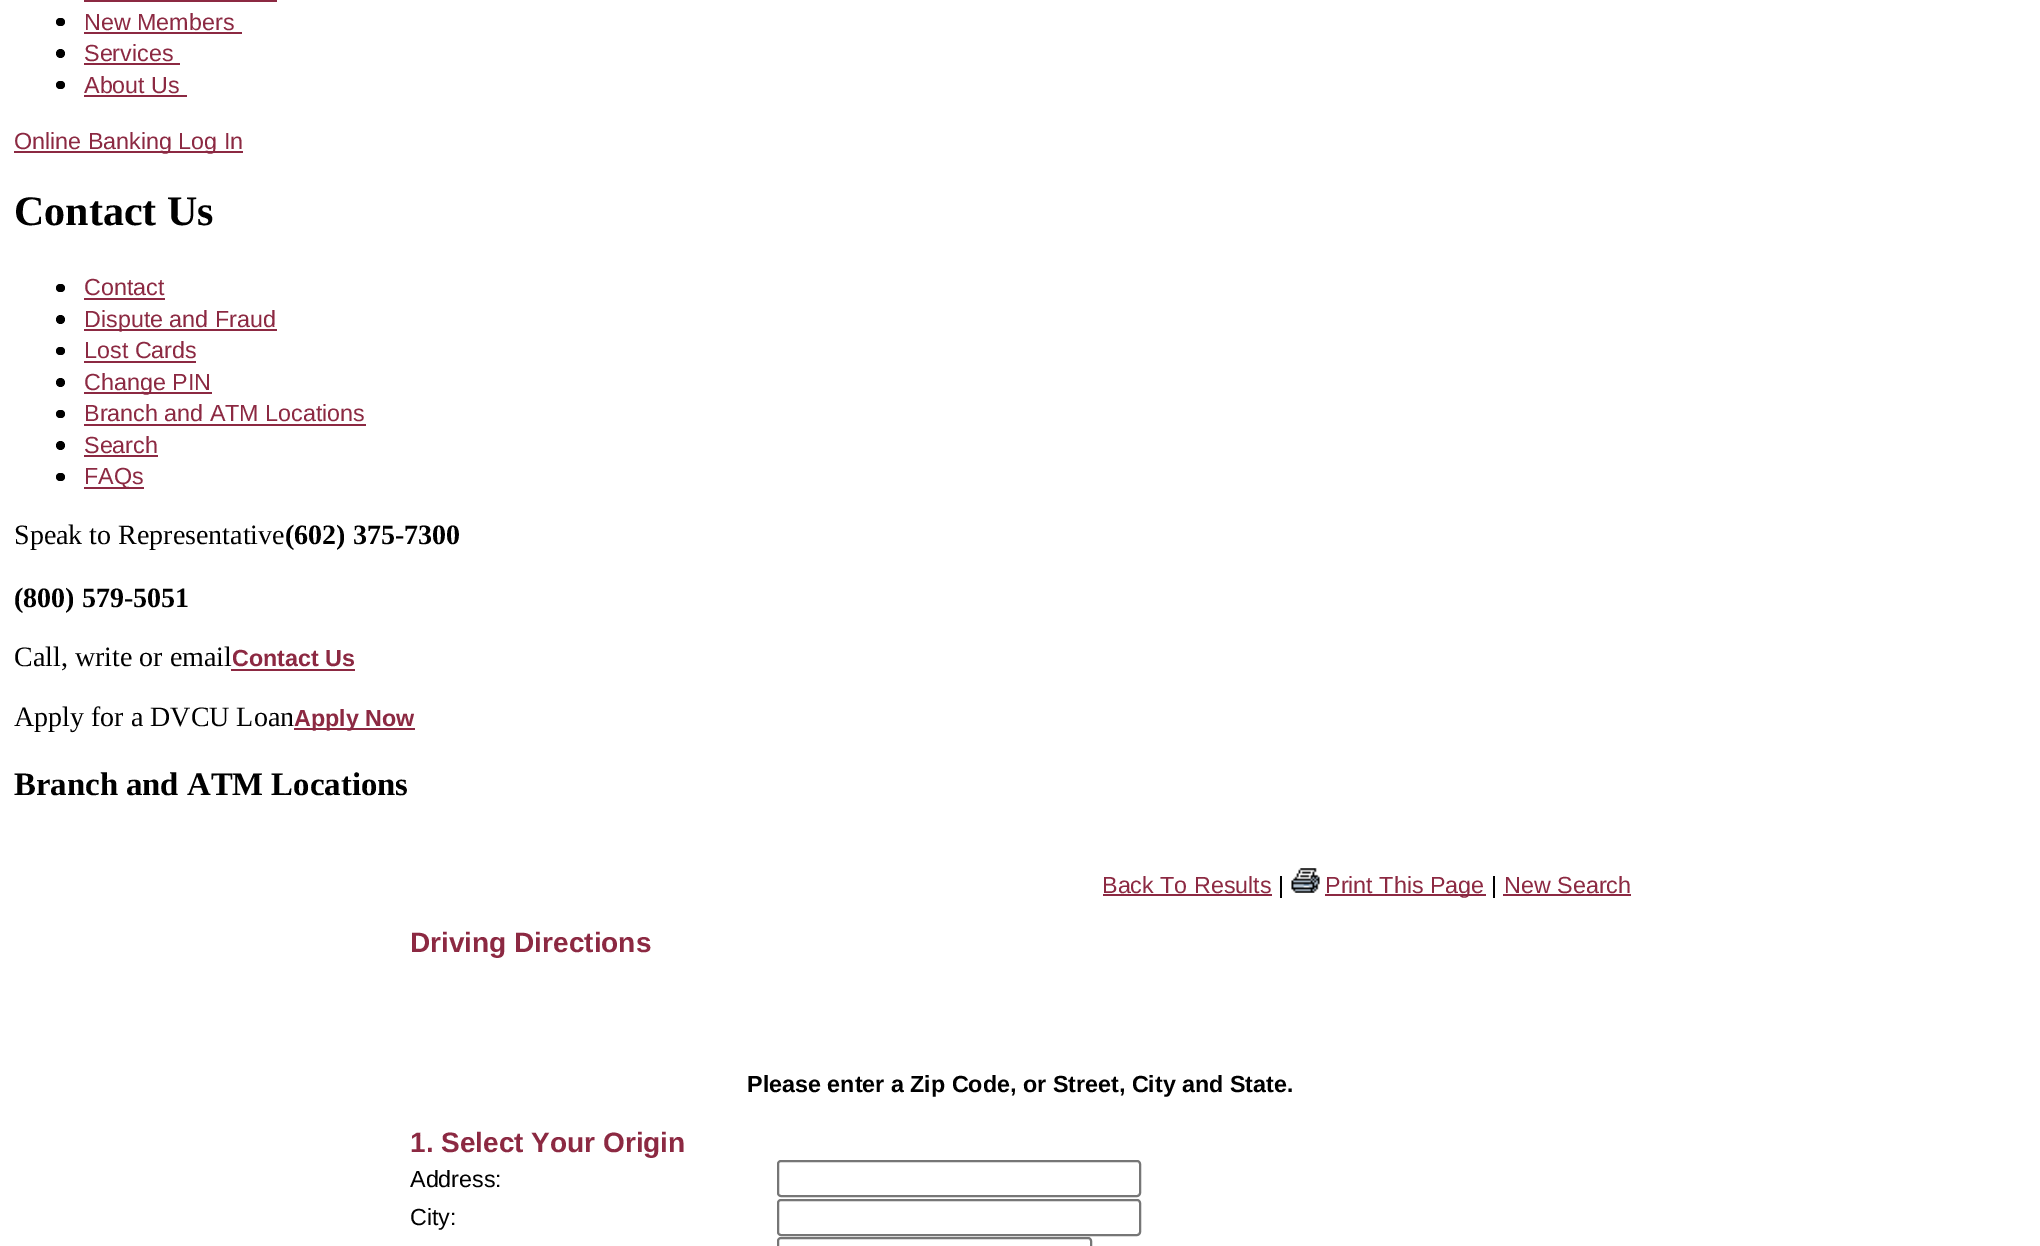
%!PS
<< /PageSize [2040 1246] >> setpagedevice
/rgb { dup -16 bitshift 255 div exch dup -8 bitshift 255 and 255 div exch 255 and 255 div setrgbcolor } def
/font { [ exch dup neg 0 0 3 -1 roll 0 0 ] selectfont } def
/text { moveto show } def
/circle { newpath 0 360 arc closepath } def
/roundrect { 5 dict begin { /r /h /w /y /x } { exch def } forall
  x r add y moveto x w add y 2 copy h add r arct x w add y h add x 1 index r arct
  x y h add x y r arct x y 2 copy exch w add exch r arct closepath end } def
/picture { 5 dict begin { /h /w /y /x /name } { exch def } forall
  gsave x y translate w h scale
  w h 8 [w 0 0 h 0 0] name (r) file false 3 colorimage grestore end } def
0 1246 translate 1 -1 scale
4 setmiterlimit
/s1 { /LiberationSans-Regular 23.3 font 16#8C2942 rgb } def
/s2 { /LiberationSerif-Bold 42 font 16#000000 rgb } def
/s3 { /LiberationSerif-Regular 28 font 16#000000 rgb } def
/s4 { /LiberationSerif-Bold 28 font 16#000000 rgb } def
/s5 { /LiberationSans-Bold 23.3 font 16#8C2942 rgb } def
/s6 { /LiberationSerif-Bold 32.75 font 16#000000 rgb } def
/s7 { /LiberationSans-Regular 23.3 font 16#000000 rgb } def
/s8 { /LiberationSans-Bold 28 font 16#8C2942 rgb } def
/s9 { /LiberationSans-Bold 23.3 font 16#000000 rgb } def
16#FFFFFF rgb
0 0 2040 1246 rectfill
16#8C2942 rgb
84 0 193 2 rectfill
16#000000 rgb
56 18 9 8 4 roundrect fill
s1
(New Members) 84 30 text
84 32 158 2 rectfill
16#000000 rgb
60.5 53.5 4.5 circle fill
s1
(Services) 84 61 text
84 63 96 2 rectfill
16#000000 rgb
56 81 9 8 4 roundrect fill
s1
(About Us) 84 93 text
84 95 103 2 rectfill
14 151 229 2 rectfill
(Online Banking Log In) 14 149 text
s2
(Contact Us) 14 225 text
56 284 9 8 4 roundrect fill
s1
(Contact) 84 295 text
84 298 81 2 rectfill
16#000000 rgb
60.5 319.5 4.5 circle fill
16#8C2942 rgb
84 329 193 2 rectfill
(Dispute and Fraud) 84 327 text
16#000000 rgb
56 347 9 8 4 roundrect fill
s1
(Lost Cards) 84 358 text
84 361 112 2 rectfill
16#000000 rgb
60.5 382.5 4.5 circle fill
16#8C2942 rgb
84 392 128 2 rectfill
(Change PIN) 84 390 text
16#000000 rgb
56 410 9 8 4 roundrect fill
s1
(Branch and ATM Locations) 84 421 text
84 424 282 2 rectfill
16#000000 rgb
60.5 445.5 4.5 circle fill
s1
(Search) 84 453 text
84 455 74 2 rectfill
16#000000 rgb
56 473 9 8 4 roundrect fill
16#8C2942 rgb
84 487 60 2 rectfill
(FAQs) 84 484 text
s3
(Speak to Representative) 14 544 text
s4
(\(602\) 375-7300) 285 544 text
(\(800\) 579-5051) 14 607 text
s3
(Call, write or email) 14 666 text
16#8C2942 rgb
231 669 124 2 rectfill
s5
(Contact Us) 232 666 text
s3
(Apply for a DVCU Loan) 14 726 text
16#8C2942 rgb
294 728 121 2 rectfill
s5
(Apply Now) 294 726 text
s6
(Branch and ATM Locations) 14 795 text
s1
(Back To Results) 1102 893 text
1103 894 169 2 rectfill
s7
(|) 1278 893 text
(pic1.raw) 1291 868 29 25 picture
16#8C2942 rgb
1325 894 161 2 rectfill
(Print This Page) 1325 893 text
s7
(|) 1491 893 text
s1
(New Search) 1504 893 text
1503 894 128 2 rectfill
s8
(Driving Directions) 410 952 text
s9
(Please enter a Zip Code, or Street, City and State.) 747 1092 text
s8
(1. Select Your Origin) 410 1152 text
s7
(Address:) 410 1187 text
16#767676 rgb
2 setlinewidth
778 1161 362 35 3 roundrect stroke
s7
(City:) 410 1225 text
16#767676 rgb
778 1200 362 35 3 roundrect stroke
778 1238 313 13 3 roundrect stroke
showpage
